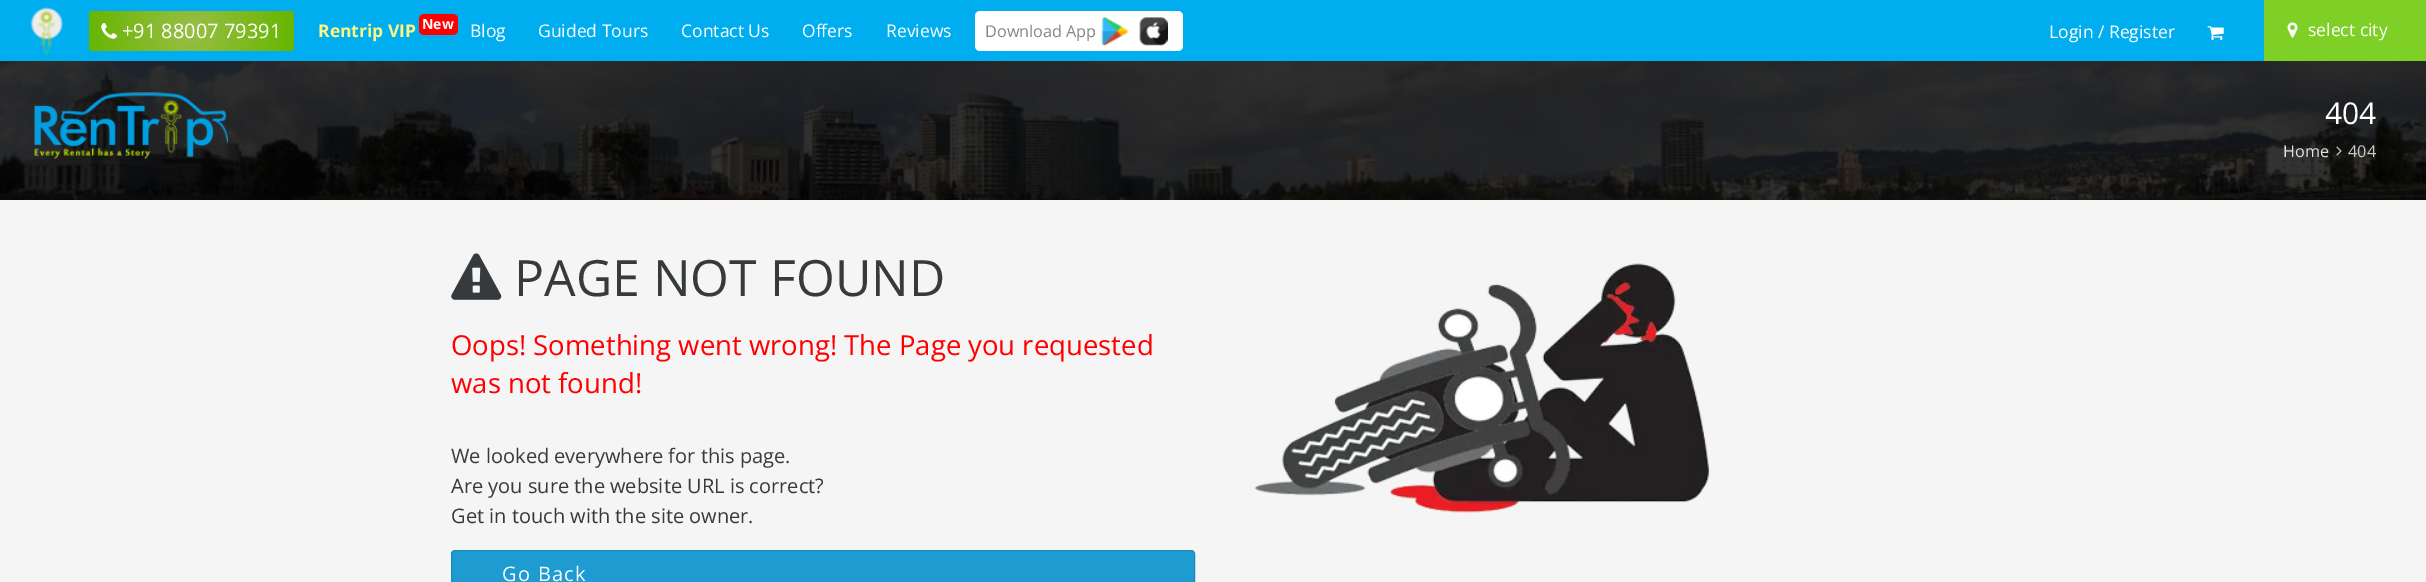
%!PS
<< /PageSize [2426 582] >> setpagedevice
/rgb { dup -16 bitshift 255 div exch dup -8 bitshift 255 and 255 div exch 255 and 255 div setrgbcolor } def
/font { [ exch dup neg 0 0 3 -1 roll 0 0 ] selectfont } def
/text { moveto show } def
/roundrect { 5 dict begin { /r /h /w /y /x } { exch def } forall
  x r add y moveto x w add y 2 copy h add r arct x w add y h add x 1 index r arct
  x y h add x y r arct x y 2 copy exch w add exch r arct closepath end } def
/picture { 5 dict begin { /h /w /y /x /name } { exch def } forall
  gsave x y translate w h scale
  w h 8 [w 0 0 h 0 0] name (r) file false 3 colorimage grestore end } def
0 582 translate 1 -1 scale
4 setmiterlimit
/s1 { /OpenSans-Regular 20 font 16#FFFFFF rgb } def
/s2 { /OpenSans-Bold 17.5 font 16#FFF783 rgb } def
/s3 { /OpenSans-Bold 14 font 16#FFFFFF rgb } def
/s4 { /OpenSans-Regular 17.5 font 16#FFFFFF rgb } def
/s5 { /OpenSans-Regular 16.25 font 16#858585 rgb } def
/s6 { /OpenSans-Regular 30 font 16#FFFFFF rgb } def
/s7 { /OpenSans-Regular 16.25 font 16#E4E4E4 rgb } def
/s8 { /OpenSans-Regular 16.25 font 16#CCCCCC rgb } def
/s9 { /OpenSans-Regular 50 font 16#373A3C rgb } def
/s10 { /OpenSans-Regular 27.5 font 16#FF0000 rgb } def
/s11 { /OpenSans-Regular 20 font 16#373A3C rgb } def
16#FFFFFF rgb
0 0 2426 582 rectfill
16#00AEEF rgb
0 0 2264 61 rectfill
(pic1.raw) 30 7 34 48 picture
gsave 89 11 205 40 4 roundrect clip newpath 191 31 translate 104 104 scale
<< /ShadingType 3 /ColorSpace /DeviceRGB /Coords [0 0 0 0 0 1] /Extend [true true] /Function << /FunctionType 2 /Domain [0 1] /C0 [0.6 0.745 0.275] /C1 [0.4 0.714 0] /N 1 >> >> shfill grestore
(pic2.raw) 101 23 16 16 picture
s1
(+91 88007 79391) 122 38 text
s2
(Rentrip VIP) 318 37 text
16#FF0000 rgb
419 14 39 21 5 roundrect fill
s3
(New) 422 29 text
s4
(Blog) 470 37 text
(Guided Tours) 538 37 text
(Contact Us) 681 37 text
(Offers) 802 37 text
(Reviews) 886 37 text
975 11 208 40 5 roundrect fill
s5
(Download App) 985 37 text
(pic3.raw) 1101 17 28 29 picture
(pic4.raw) 1139 17 29 29 picture
16#7ED026 rgb
2264 0 162 61 rectfill
s4
(Login / Register) 2049 38 text
(pic5.raw) 2207 26 17 14 picture
(pic6.raw) 2287 22 11 16 picture
(select city) 2308 36 text
(pic7.raw) 0 61 2426 139 picture
(pic8.raw) 34 92 195 67 picture
s6
(404) 2325 124 text
s7
(Home) 2283 157 text
(pic9.raw) 2336 146 6 10 picture
s8
(404) 2348 157 text
16#F5F5F5 rgb
0 200 2426 382 rectfill
(pic10.raw) 451 253 51 47 picture
s9
(PAGE NOT FOUND) 514 296 text
s10
(Oops! Something went wrong! The Page you requested) 451 355 text
(was not found!) 451 393 text
s11
(We looked everywhere for this page.) 451 463 text
(Are you sure the website URL is correct?) 451 493 text
(Get in touch with the site owner.) 451 523 text
16#1E9BD0 rgb
451.5 550.5 743 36 3.5 roundrect gsave fill grestore
16#1C89B7 rgb
stroke
16#FFFFFF rgb
502 581 moveto 1.25 0 (Go Back) ashow
(pic11.raw) 1254 263 456 250 picture
showpage
